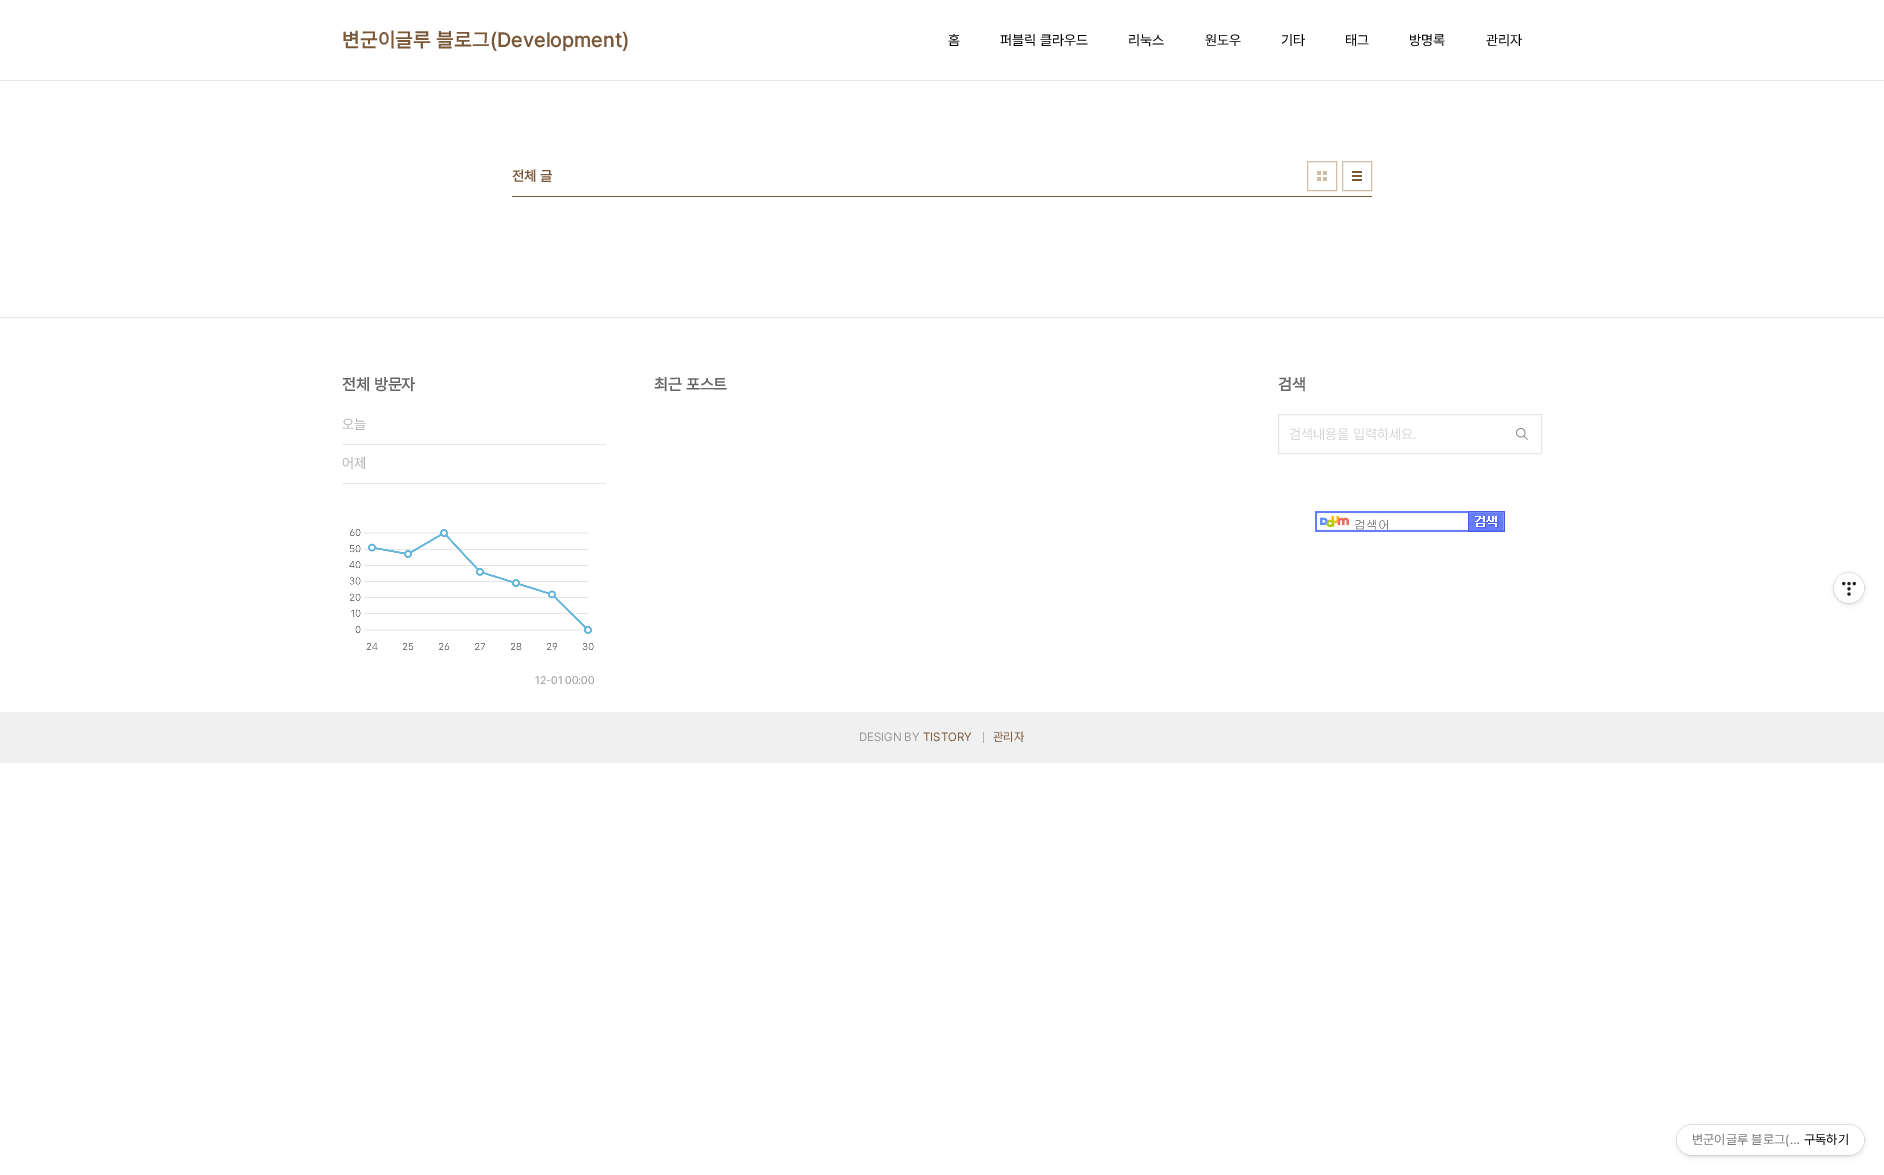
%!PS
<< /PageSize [1884 1175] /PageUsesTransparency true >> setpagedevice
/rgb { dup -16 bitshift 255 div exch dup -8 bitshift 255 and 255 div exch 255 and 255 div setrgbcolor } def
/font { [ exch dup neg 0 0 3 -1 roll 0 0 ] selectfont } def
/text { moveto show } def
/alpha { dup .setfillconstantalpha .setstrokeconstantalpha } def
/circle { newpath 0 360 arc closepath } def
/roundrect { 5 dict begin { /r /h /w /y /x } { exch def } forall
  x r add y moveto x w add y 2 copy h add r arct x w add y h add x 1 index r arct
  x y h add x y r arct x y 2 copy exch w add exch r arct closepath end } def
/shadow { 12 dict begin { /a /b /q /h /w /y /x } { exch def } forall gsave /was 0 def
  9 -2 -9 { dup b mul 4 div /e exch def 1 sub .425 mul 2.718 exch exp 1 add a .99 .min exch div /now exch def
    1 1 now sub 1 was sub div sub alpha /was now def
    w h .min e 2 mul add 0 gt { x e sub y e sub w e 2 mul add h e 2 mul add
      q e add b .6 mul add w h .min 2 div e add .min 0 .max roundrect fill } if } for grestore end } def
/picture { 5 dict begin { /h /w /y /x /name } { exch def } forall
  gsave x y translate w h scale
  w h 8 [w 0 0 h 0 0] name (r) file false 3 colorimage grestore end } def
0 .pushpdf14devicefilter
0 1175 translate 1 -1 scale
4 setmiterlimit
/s1 { /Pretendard-Regular 14 font 16#000000 rgb } def
/s2 { /Pretendard-Bold 14 font 16#7A583A rgb } def
/s3 { /Pretendard-Bold 16 font 16#666666 rgb } def
/s4 { /Pretendard-Regular 14 font 16#B2B2B2 rgb } def
/s5 { /Pretendard-Regular 11 font 16#999999 rgb } def
/s6 { /Pretendard-Regular 14 font 16#D6D6D6 rgb } def
/s7 { /Gulim-Regular 12 font 16#555555 rgb } def
/s8 { /Pretendard-Regular 12 font 16#999999 rgb } def
/s9 { /Pretendard-Regular 12 font 16#7A583A rgb } def
/s10 { /Pretendard-Regular 13 font 16#777777 rgb } def
/s11 { /Pretendard-Regular 13 font 16#000000 rgb } def
16#FFFFFF rgb
0 0 1884 1175 rectfill
16#E6E6E6 rgb
0 80 1884 1 rectfill
/Pretendard-Bold 20 font
16#7A583A rgb
342 47 moveto 0.5 0 (변군이글루 블로그\(Development\)) ashow
s1
(홈) 948 45 text
(퍼블릭 클라우드) 1000 45 text
(리눅스) 1128 45 text
(원도우) 1205 45 text
(기타) 1281 45 text
(태그) 1345 45 text
(방명록) 1409 45 text
(관리자) 1486 45 text
16#7A583A rgb
512 196 860 1 rectfill
s2
(전체 글) 512 181 text
(pic1.raw) 1317 171 10 10 picture
16#D4BCA7 rgb
1307.5 161.5 29 29 rectstroke
(pic2.raw) 1352 171 10 10 picture
1342.5 161.5 29 29 rectstroke
16#E6E6E6 rgb
0 317 1884 1 rectfill
s3
(전체 방문자) 342 390 text
16#E6E6E6 rgb
342 444 264 1 rectfill
s4
(오늘) 342 429 text
16#E6E6E6 rgb
342 483 264 1 rectfill
s4
(어제) 342 468 text
(pic3.raw) 349 529 245 121 picture
s5
(12-01 00:00) 535 684 text
s3
(최근 포스트) 654 390 text
(검색) 1278 390 text
16#E6E6E6 rgb
1278.5 414.5 263 39 rectstroke
s6
(검색내용을 입력하세요.) 1289 439 text
(pic4.raw) 1516 428 12 12 picture
(pic5.raw) 1315 511 153 21 picture
(pic6.raw) 1315 513 34 17 picture
s7
(검색어) 1354 529 text
(pic7.raw) 1468 511 37 21 picture
16#F0F0F0 rgb
0 712 1884 51 rectfill
s8
(DESIGN BY) 859 741 text
s9
(TISTORY) 923 741 text
16#B2B2B2 rgb
983 732 1 11 rectfill
s9
(관리자) 993 741 text
16#000000 rgb
1834 575 30 30 15 2.5 0.1 shadow
0.1 alpha
1849 588 15.5 circle stroke
1 alpha
16#FFFFFF rgb
1849 588 15 circle fill
(pic8.raw) 1842 581 14 15 picture
16#000000 rgb
1677 1127 187 30 15 2.5 0.1 shadow
0.1 alpha
1676.5 1124.5 188 31 15.5 roundrect stroke
1 alpha
16#FFFFFF rgb
1677 1125 187 30 15 roundrect fill
s10
(변군이글루 블로그\(…) 1692 1144 text
s11
(구독하기) 1804 1144 text
.poppdf14devicefilter showpage
